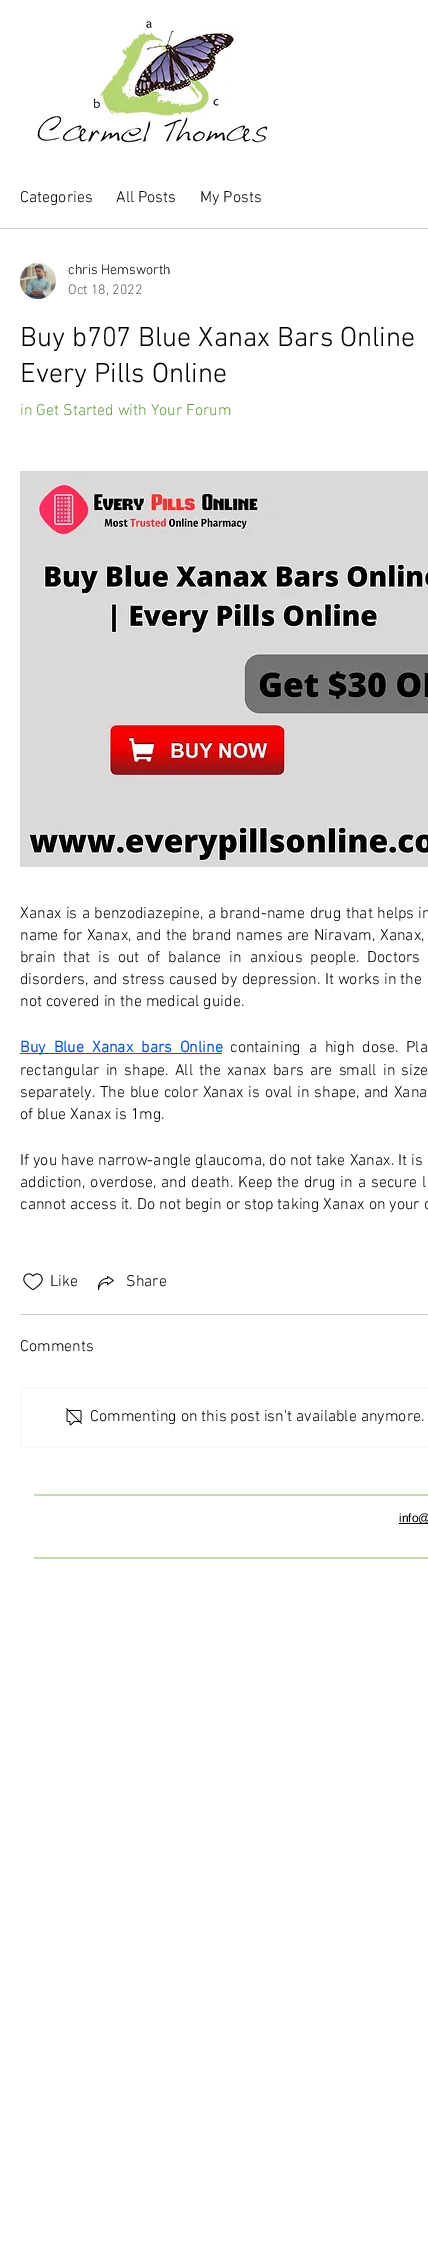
%!PS
<< /PageSize [428 2255] >> setpagedevice
/rgb { dup -16 bitshift 255 div exch dup -8 bitshift 255 and 255 div exch 255 and 255 div setrgbcolor } def
/font { [ exch dup neg 0 0 3 -1 roll 0 0 ] selectfont } def
/text { moveto show } def
/picture { 5 dict begin { /h /w /y /x /name } { exch def } forall
  gsave x y translate w h scale
  w h 8 [w 0 0 h 0 0] name (r) file false 3 colorimage grestore end } def
0 2255 translate 1 -1 scale
4 setmiterlimit
/s1 { /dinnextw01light-Light 16 font 16#000000 rgb } def
/s2 { /dinnextw01light-Light 14 font 16#000000 rgb } def
/s3 { /dinnextw01light-Light 14 font 16#5C5C5C rgb } def
/s4 { /dinnextw01light-Light 28 font 16#000000 rgb } def
/s5 { /dinnextw01light-Light 16 font 16#639B3E rgb } def
/s6 { /LiberationSans-Regular 12 font 16#000000 rgb } def
16#FFFFFF rgb
0 0 428 2255 rectfill
(pic1.raw) 37 20 232 124 picture
16#CCCCCC rgb
0 228 428 1 rectfill
s1
(Categories) 20 202 text
(All Posts) 116 202 text
(My Posts) 200 202 text
(pic2.raw) 20 263 36 36 picture
s2
(chris Hemsworth) 68 274 text
s3
(Oct 18, 2022) 68 294 text
s4
(Buy b707 Blue Xanax Bars Online) 20 346 text
(Every Pills Online) 20 382 text
s5
(in Get Started with Your Forum) 20 415 text
(pic3.raw) 20 471 408 396 picture
16#000000 rgb
20 918 moveto 0.5 0 32 (Xanax is a benzodiazepine, a brand-name drug that helps in) widthshow
20 940 moveto 0.5 0 32 (name for Xanax, and the brand names are Niravam, Xanax,) widthshow
20 962 moveto 4 0 32 (brain that is out of balance in anxious people. Doctors) widthshow
20 984 moveto 0.25 0 32 (disorders, and stress caused by depression. It works in the) widthshow
(not covered in the medical guide.) 20 1006 text
16#1155CC rgb
20 1053 202 1 rectfill
/dinnextw01light-Bold 16 font
20 1052 moveto 4 0 32 (Buy Blue Xanax bars Online) widthshow
/dinnextw01light-Light 16 font
16#000000 rgb
230 1052 moveto 4 0 32 (containing a high dose. Pla) widthshow
20 1075 moveto 2.25 0 32 (rectangular in shape. All the xanax bars are small in size) widthshow
20 1097 moveto 0.75 0 32 (separately. The blue color Xanax is oval in shape, and Xana) widthshow
(of blue Xanax is 1mg.) 20 1119 text
20 1165 moveto 0.25 0 32 (If you have narrow-angle glaucoma, do not take Xanax. It is) widthshow
20 1187 moveto 1 0 32 (addiction, overdose, and death. Keep the drug in a secure l) widthshow
(cannot access it. Do not begin or stop taking Xanax on your o) 20 1209 text
(pic4.raw) 23 1273 20 18 picture
(Like) 50 1286 text
(pic5.raw) 98 1276 16 14 picture
(Share) 126 1286 text
16#CCCCCC rgb
20 1314 408 1 rectfill
s1
(Comments) 20 1351 text
16#F7F7F7 rgb
20.5 1387.5 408 59 rectstroke
(pic6.raw) 66 1408 16 18 picture
s1
(Commenting on this post isn't available anymore.) 90 1421 text
16#C3DDB1 rgb
34 1494 394 2 rectfill
16#000000 rgb
399 1523 29 1 rectfill
s6
(info@) 399 1522 text
16#C3DDB1 rgb
34 1557 394 2 rectfill
showpage
